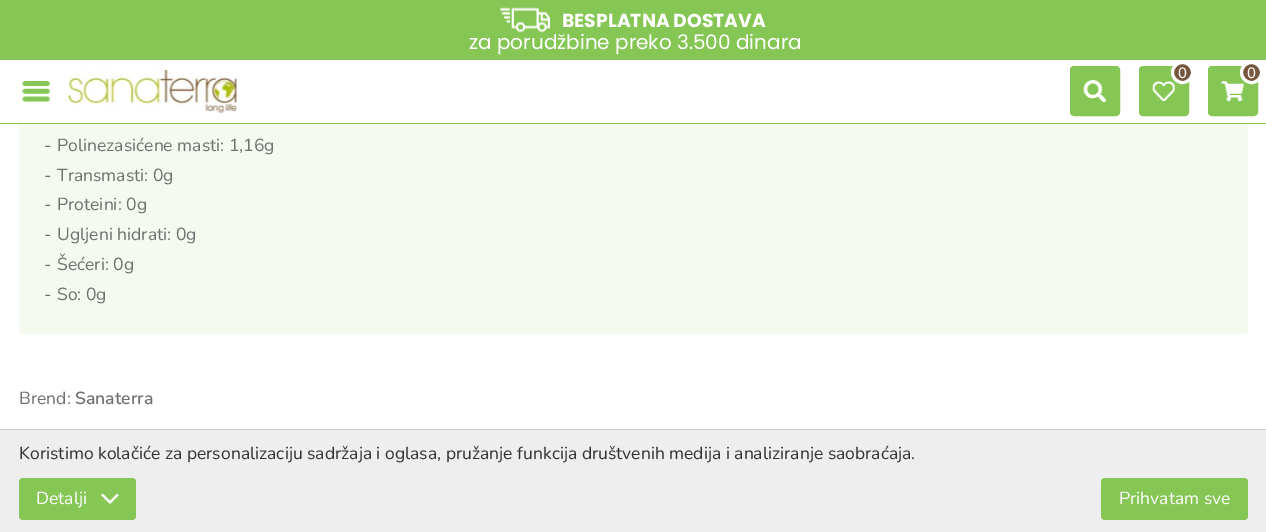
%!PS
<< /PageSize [1266 532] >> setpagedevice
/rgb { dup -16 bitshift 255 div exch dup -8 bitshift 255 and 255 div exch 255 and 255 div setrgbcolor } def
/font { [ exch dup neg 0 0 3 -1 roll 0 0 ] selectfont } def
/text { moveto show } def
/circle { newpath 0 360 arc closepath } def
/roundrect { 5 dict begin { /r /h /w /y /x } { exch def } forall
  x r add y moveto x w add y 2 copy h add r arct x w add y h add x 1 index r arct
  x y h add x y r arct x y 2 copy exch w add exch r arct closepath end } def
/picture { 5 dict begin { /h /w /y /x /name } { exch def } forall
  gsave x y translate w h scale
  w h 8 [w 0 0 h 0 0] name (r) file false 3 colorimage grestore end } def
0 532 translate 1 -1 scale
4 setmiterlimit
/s1 { /Poppins-Bold 18.75 font 16#FFFFFF rgb } def
/s2 { /Poppins-Regular 20 font 16#FFFFFF rgb } def
/s3 { /Nunito-Medium 15 font 16#FFFFFF rgb } def
/s4 { /Nunito-Regular 17.5 font 16#707070 rgb } def
/s5 { /Nunito-SemiBold 17.5 font 16#707070 rgb } def
/s6 { /Nunito-Regular 17.5 font 16#333333 rgb } def
/s7 { /Nunito-Regular 17.5 font 16#FFFFFF rgb } def
16#FFFFFF rgb
0 0 1266 532 rectfill
16#F4FAF0 rgb
19 -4 1229 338 4 roundrect fill
16#FFFFFF rgb
19 60 1229 63 rectfill
16#85C654 rgb
0 123 1266 1 rectfill
0 0 1266 60 rectfill
(pic1.raw) 500 7 50 26 picture
s1
(BESPLATNA DOSTAVA) 562 27 text
s2
(za porudžbine preko 3.500 dinara) 469 49 text
(pic2.raw) 22 81 29 21 picture
(pic3.raw) 68 70 169 43 picture
16#85C654 rgb
1070.5 66.5 49 49 3.5 roundrect gsave fill grestore
stroke
(pic4.raw) 1083 80 24 23 picture
1139.5 66.5 49 49 3.5 roundrect gsave fill grestore
stroke
(pic5.raw) 1152 81 23 20 picture
16#77563E rgb
1182.5 72.5 10 circle gsave fill grestore
16#FFFFFF rgb
3 setlinewidth
stroke
s3
(0) 1178 78 text
16#85C654 rgb
1208.5 66.5 49 49 3.5 roundrect gsave fill grestore
1 setlinewidth
stroke
(pic6.raw) 1220 81 24 21 picture
16#77563E rgb
1251.5 72.5 10 circle gsave fill grestore
16#FFFFFF rgb
3 setlinewidth
stroke
(0) 1247 78 text
s4
(-) 44 151 text
(Polinezasićene masti: 1,16g) 57 151 text
(-) 44 181 text
(Transmasti: 0g) 57 181 text
(-) 44 210 text
(Proteini: 0g) 57 210 text
(-) 44 240 text
(Ugljeni hidrati: 0g) 57 240 text
(-) 44 270 text
(Šećeri: 0g) 57 270 text
(-) 44 300 text
(So: 0g) 57 300 text
(Brend:) 19 404 text
s5
(Sanaterra) 75 404 text
16#EEEEEE rgb
0 430 1266 102 rectfill
16#CCCCCC rgb
0 429 1266 1 rectfill
s6
(Koristimo kolačiće za personalizaciju sadržaja i oglasa, pružanje funkcija društvenih medija i analiziranje saobraćaja.) 19 459 text
16#85C654 rgb
19 478 117 42 4 roundrect fill
s7
(Detalji) 36 504 text
(pic7.raw) 101 493 18 11 picture
16#85C654 rgb
1101 478 147 42 4 roundrect fill
s7
(Prihvatam sve) 1119 504 text
showpage
